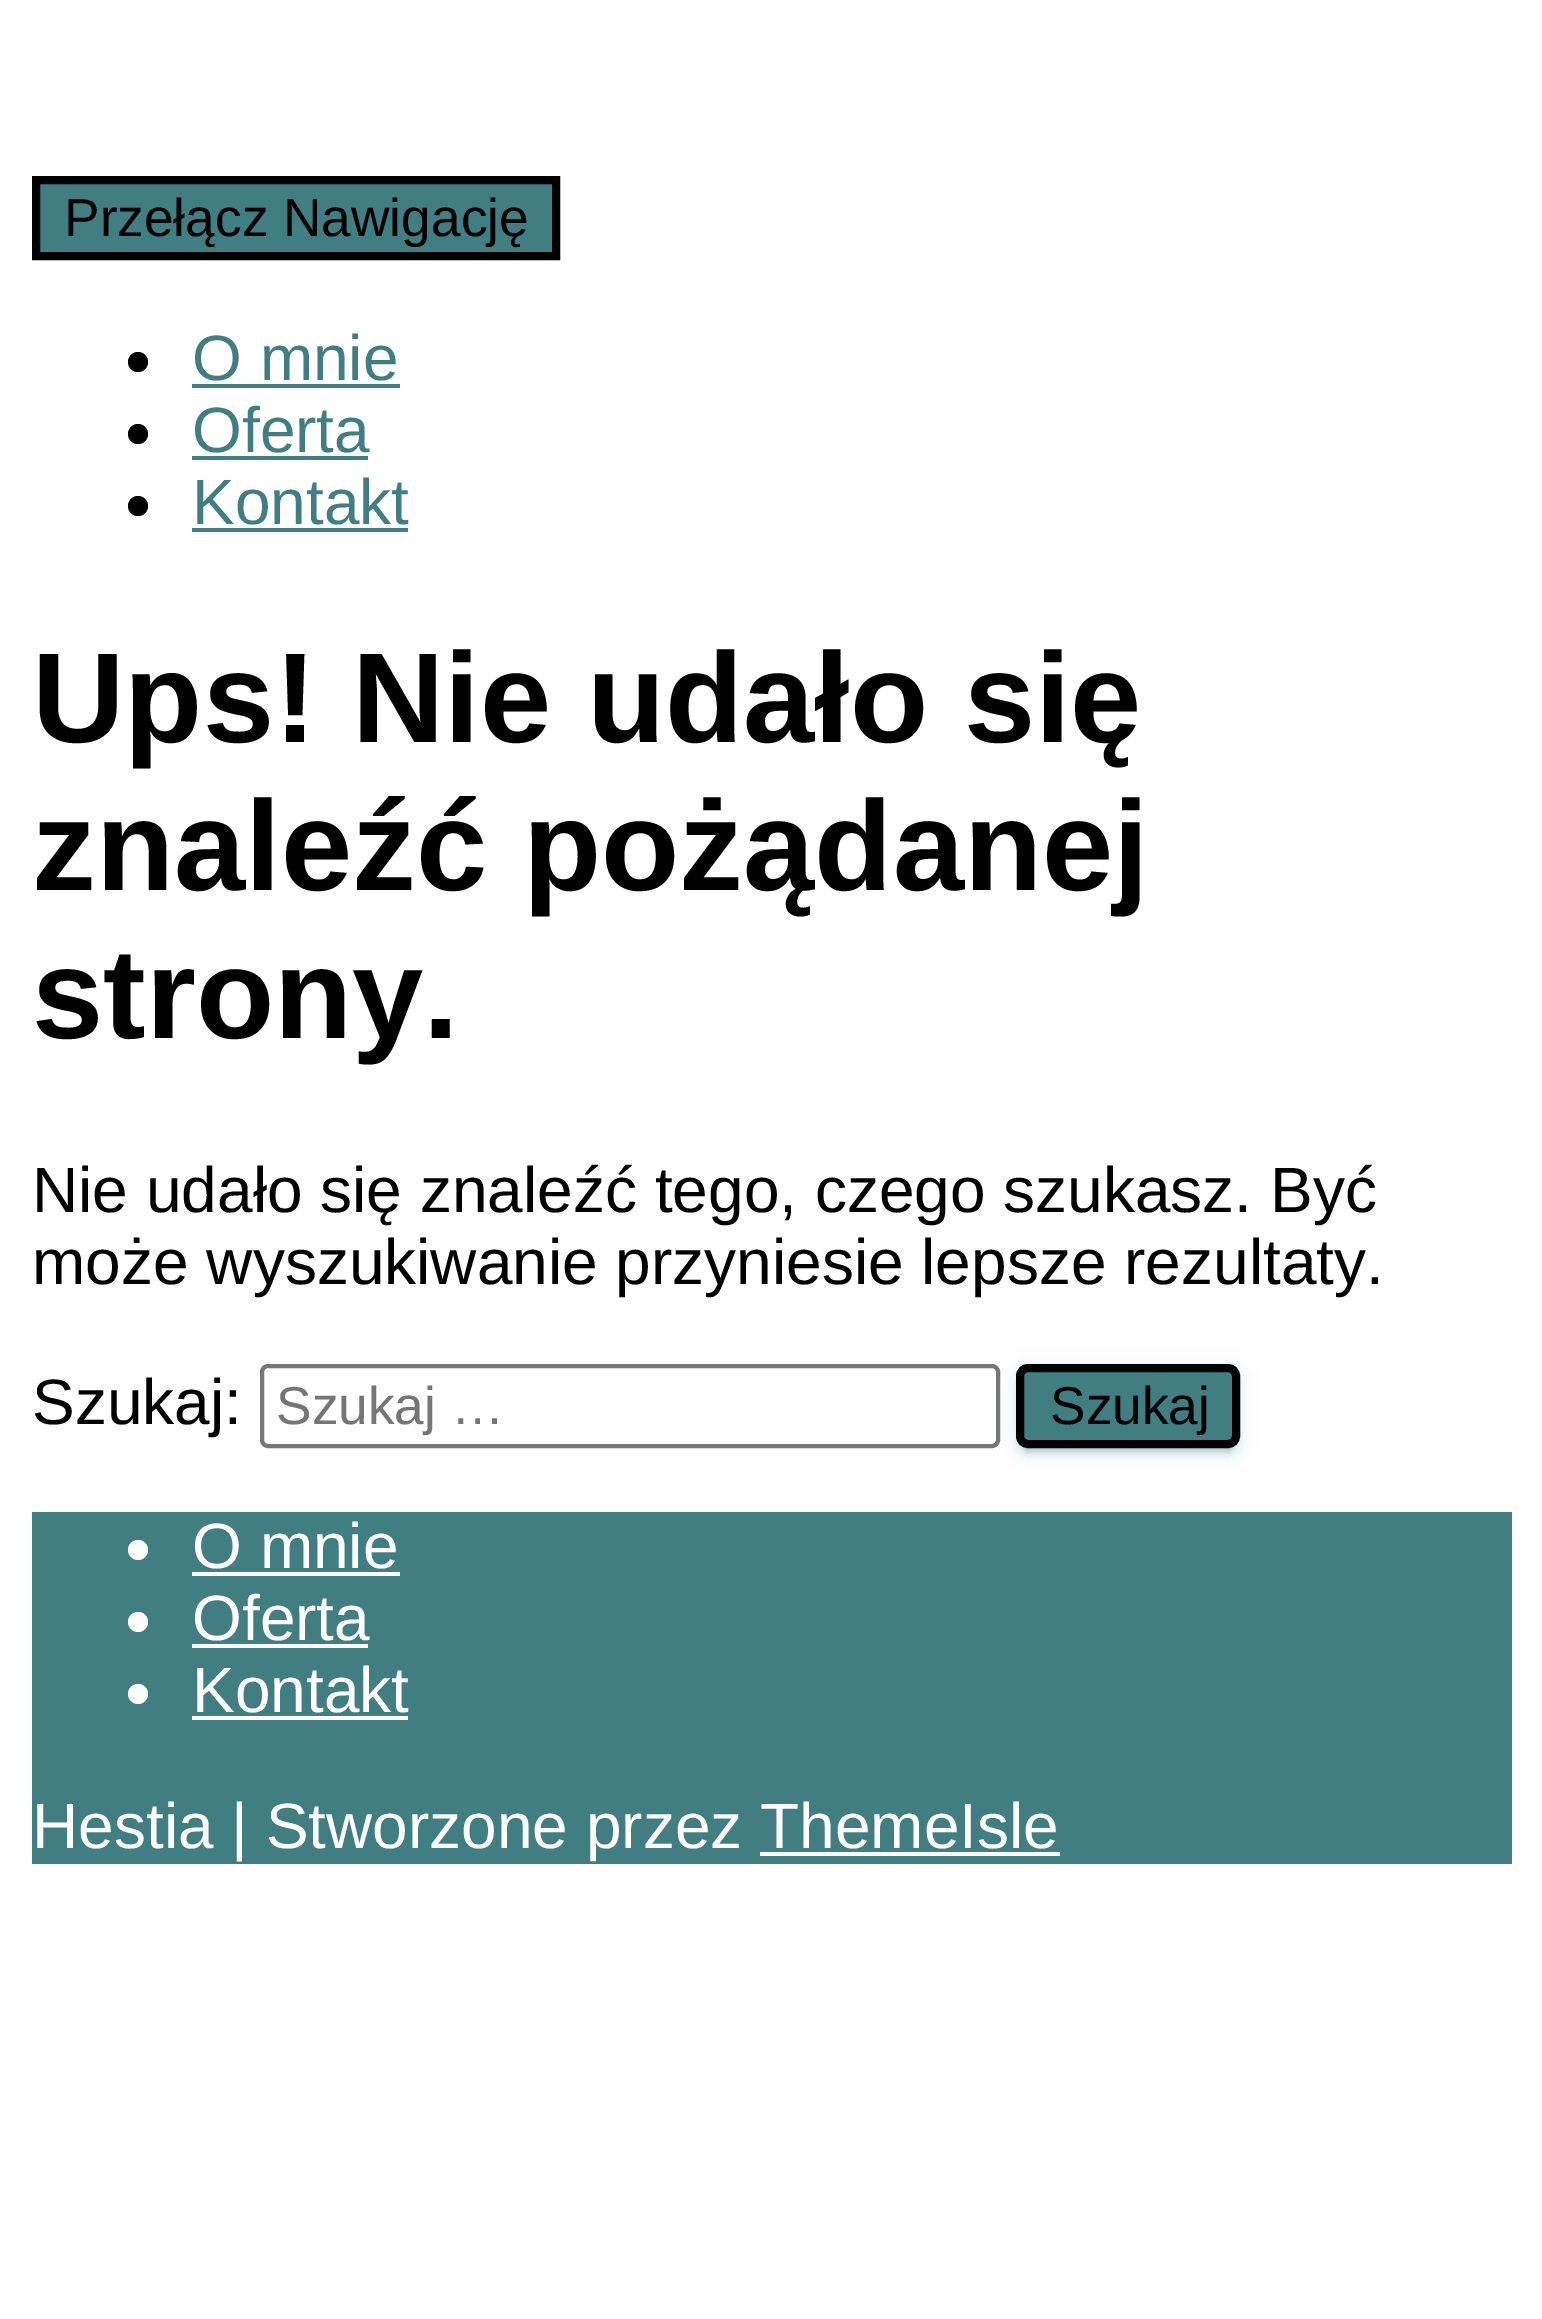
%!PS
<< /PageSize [1542 2319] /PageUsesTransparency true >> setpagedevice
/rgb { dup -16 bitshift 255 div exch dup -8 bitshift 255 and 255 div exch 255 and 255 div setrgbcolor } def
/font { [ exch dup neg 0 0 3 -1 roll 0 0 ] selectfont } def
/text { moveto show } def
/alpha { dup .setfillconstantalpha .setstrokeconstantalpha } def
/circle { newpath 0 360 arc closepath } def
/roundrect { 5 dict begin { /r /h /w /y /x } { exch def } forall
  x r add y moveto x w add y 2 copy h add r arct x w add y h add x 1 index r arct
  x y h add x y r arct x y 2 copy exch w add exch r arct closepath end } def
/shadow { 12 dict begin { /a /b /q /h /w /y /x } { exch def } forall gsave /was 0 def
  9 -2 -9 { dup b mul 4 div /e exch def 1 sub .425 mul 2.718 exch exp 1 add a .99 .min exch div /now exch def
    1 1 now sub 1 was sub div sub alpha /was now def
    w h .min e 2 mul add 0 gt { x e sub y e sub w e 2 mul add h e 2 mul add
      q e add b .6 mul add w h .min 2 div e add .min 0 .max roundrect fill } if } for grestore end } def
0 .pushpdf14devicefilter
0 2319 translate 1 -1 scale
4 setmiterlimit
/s1 { /LiberationSans-Regular 53.25 font 16#000000 rgb } def
/s2 { /LiberationSans-Regular 64 font 16#407E82 rgb } def
/s3 { /LiberationSans-Bold 128 font 16#000000 rgb } def
/s4 { /LiberationSans-Regular 64 font 16#000000 rgb } def
/s5 { /LiberationSans-Regular 53.25 font 16#757575 rgb } def
/s6 { /LiberationSans-Regular 64 font 16#FFFFFF rgb } def
16#FFFFFF rgb
0 0 1542 2319 rectfill
16#407E82 rgb
36 180 moveto 556 180 lineto 556 256 lineto 36 256 lineto closepath gsave fill grestore
16#000000 rgb
8 setlinewidth
stroke
s1
(Przełącz Nawigację) 64 236 text
138 362 10 circle fill
s2
(O mnie) 192 380 text
192 384 208 4 rectfill
16#000000 rgb
138 434 10 circle fill
s2
(Oferta) 192 452 text
192 456 176 4 rectfill
16#000000 rgb
138 506 10 circle fill
s2
(Kontakt) 192 524 text
192 528 216 4 rectfill
s3
(Ups! Nie udało się) 32 742 text
(znaleźć pożądanej) 32 890 text
(strony.) 32 1038 text
s4
(Nie udało się znaleźć tego, czego szukasz. Być) 32 1212 text
(może wyszukiwanie przyniesie lepsze rezultaty.) 32 1284 text
(Szukaj:) 32 1424 text
16#767676 rgb
4 setlinewidth
262 1366 736 80 6 roundrect stroke
s5
(Szukaj …) 276 1424 text
16#407E82 rgb
1016 1368 224 84 12 10 0.12 shadow
1024 1384 208 68 4 2 0.2 shadow
1016 1372 224 84 12 4 0.14 shadow
1020 1368 216 76 8 roundrect gsave fill grestore
16#000000 rgb
8 setlinewidth
stroke
(Szukaj) 1050 1424 text
16#407E82 rgb
32 1512 1480 352 rectfill
16#FFFFFF rgb
138 1550 10 circle fill
s6
(O mnie) 192 1568 text
192 1572 208 4 rectfill
138 1622 10 circle fill
(Oferta) 192 1640 text
192 1644 176 4 rectfill
138 1694 10 circle fill
(Kontakt) 192 1712 text
192 1716 216 4 rectfill
(Hestia | Stworzone przez ThemeIsle) 32 1848 text
760 1852 300 4 rectfill
.poppdf14devicefilter showpage
